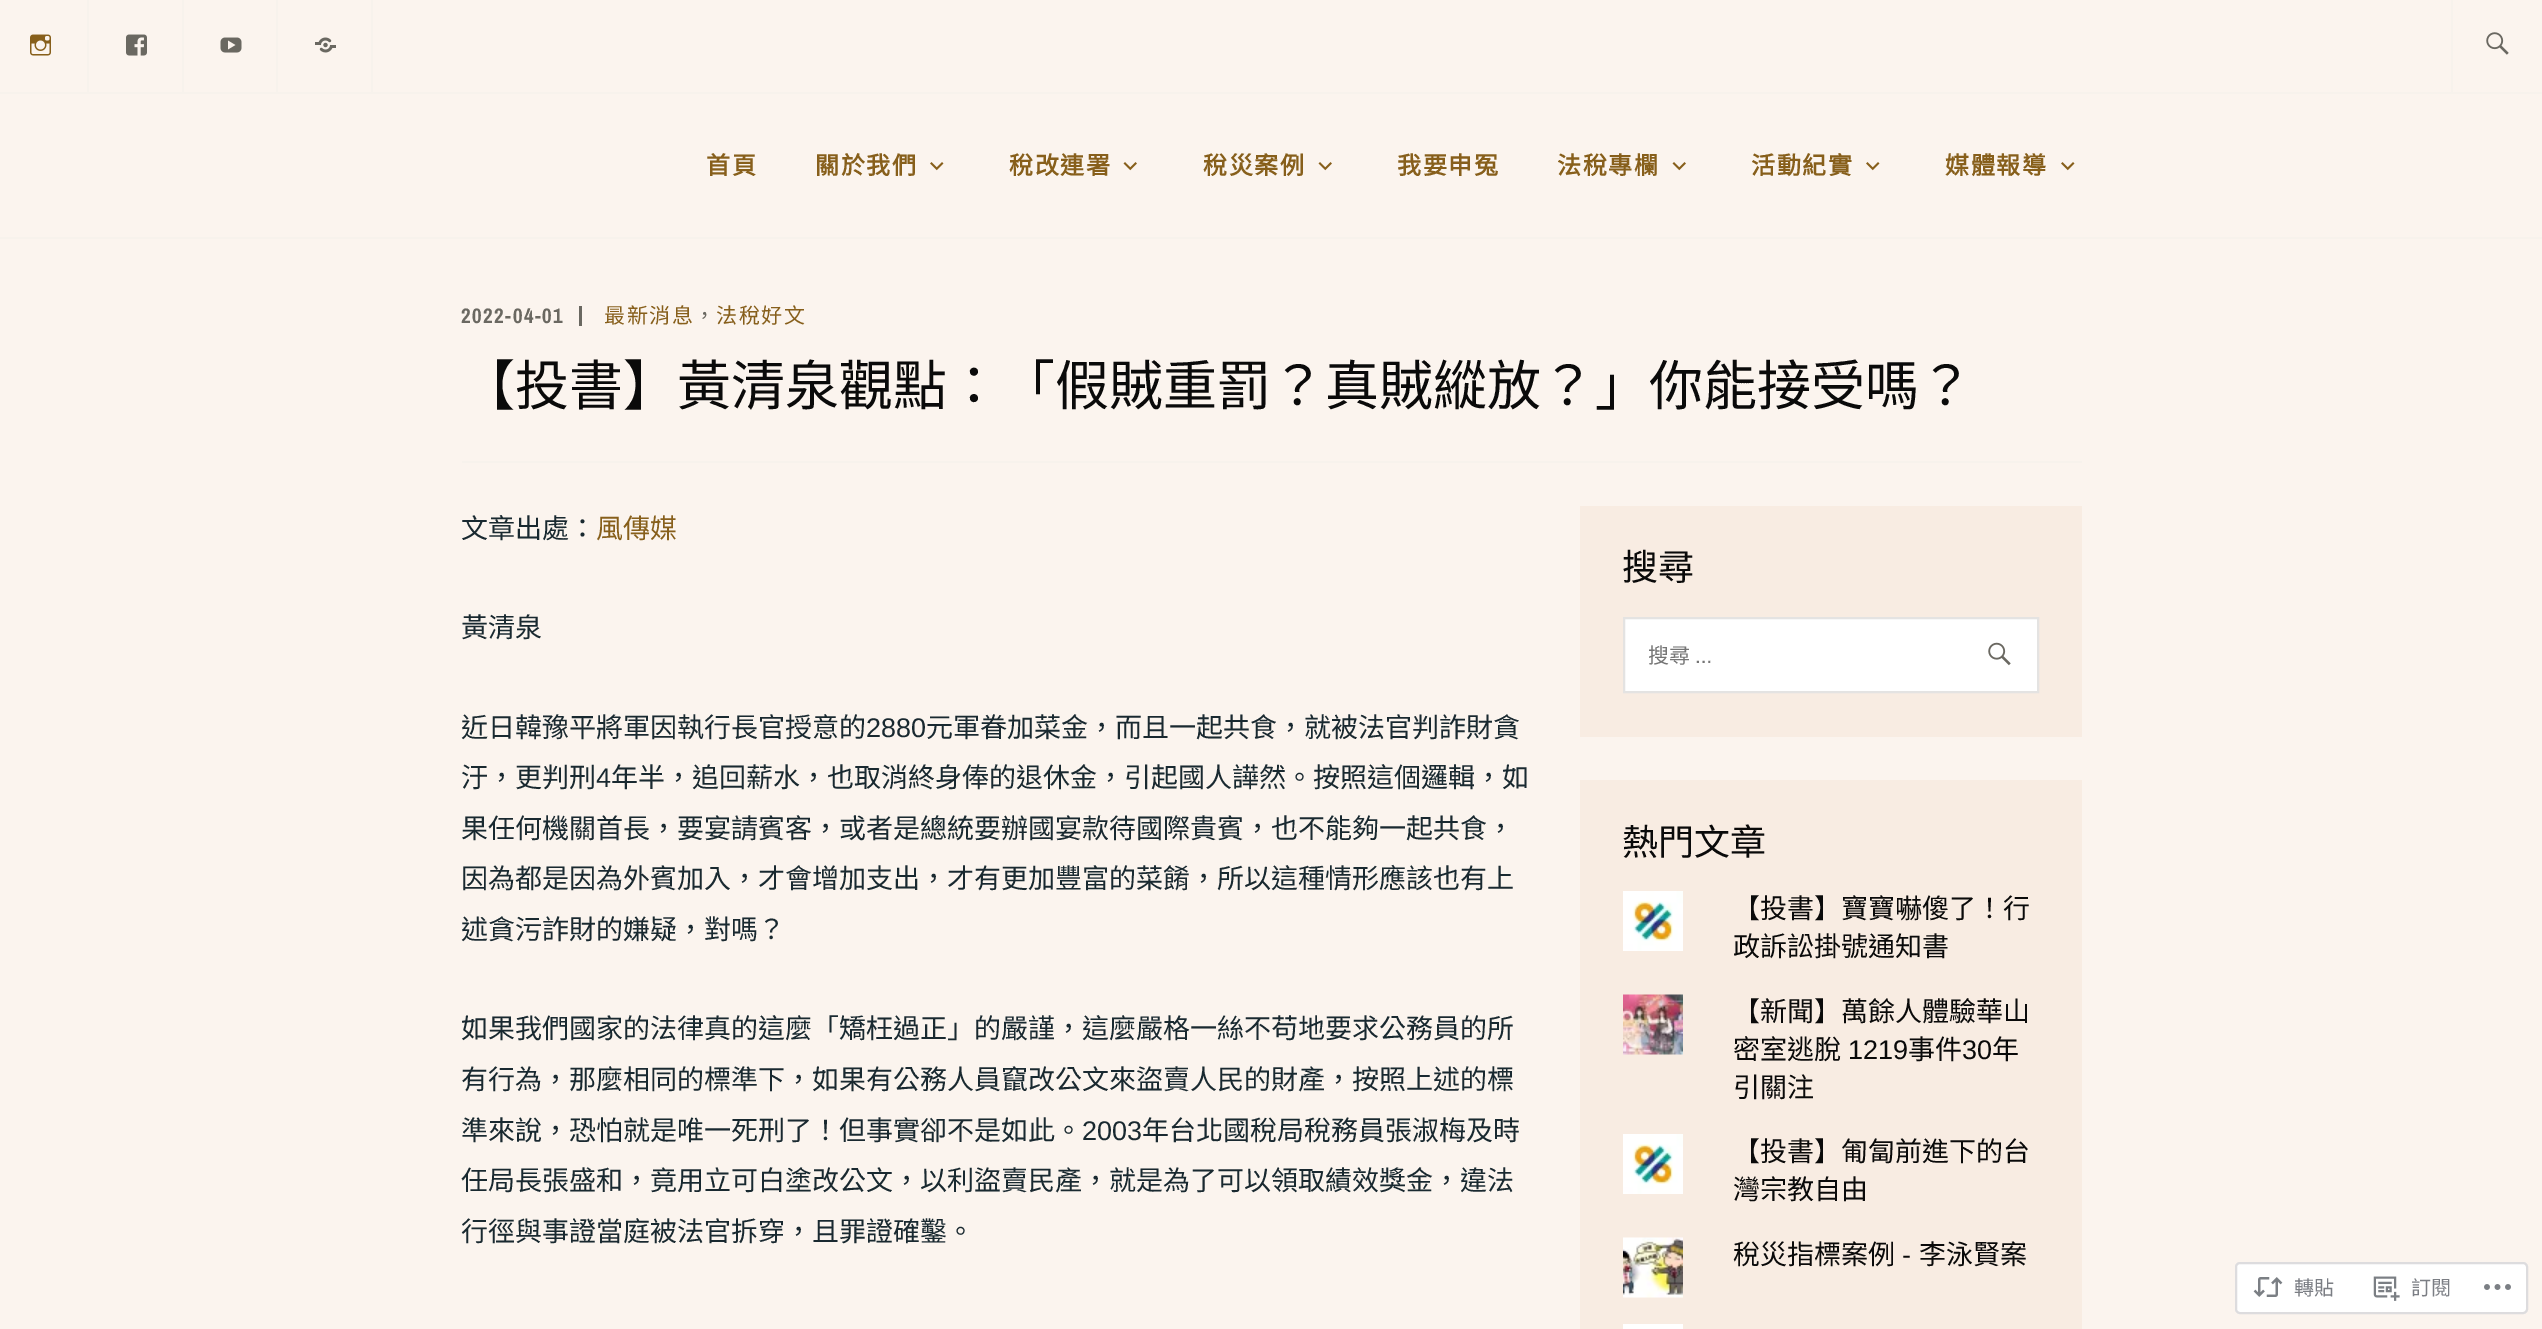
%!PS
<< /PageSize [2542 1329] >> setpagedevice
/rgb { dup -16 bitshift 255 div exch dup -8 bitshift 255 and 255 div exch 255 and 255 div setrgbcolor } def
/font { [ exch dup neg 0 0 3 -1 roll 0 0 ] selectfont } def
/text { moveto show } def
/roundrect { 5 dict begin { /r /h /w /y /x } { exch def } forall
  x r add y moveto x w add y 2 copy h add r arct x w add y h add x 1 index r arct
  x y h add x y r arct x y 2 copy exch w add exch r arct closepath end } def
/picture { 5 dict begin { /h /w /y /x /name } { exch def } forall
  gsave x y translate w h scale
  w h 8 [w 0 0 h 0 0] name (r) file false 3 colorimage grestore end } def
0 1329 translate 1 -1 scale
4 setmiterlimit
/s1 { /NotoSansCJKTC-Regular 54 font 16#0A0A0A rgb } def
/s2 { /NotoSansCJKTC-Regular 27 font 16#192930 rgb } def
/s3 { /NotoSansCJKTC-Regular 27 font 16#875F1B rgb } def
/s4 { /LiberationSans-Regular 27 font 16#192930 rgb } def
/s5 { /NotoSansCJKTC-Regular 36 font 16#0A0A0A rgb } def
/s6 { /NotoSansCJKTC-Regular 21 font 16#757575 rgb } def
/s7 { /ArchivoNarrow-Regular 21 font 16#757575 rgb } def
/s8 { /NotoSansCJKTC-Regular 27 font 16#0A0A0A rgb } def
/s9 { /LiberationSans-Regular 27 font 16#0A0A0A rgb } def
/s10 { /NotoSansCJKTC-Regular 20 font 16#7B7E84 rgb } def
16#FBF4EE rgb
0 0 2542 1329 rectfill
16#F7F2EC rgb
0 237 2542 2 rectfill
0 92 2542 2 rectfill
87 0 2 92 rectfill
(pic1.raw) 30 34 21 22 picture
182 0 2 92 rectfill
(pic2.raw) 126 34 21 22 picture
276 0 2 92 rectfill
(pic3.raw) 220 37 22 16 picture
371 0 2 92 rectfill
(pic4.raw) 315 37 21 16 picture
2451 0 2 92 rectfill
(pic5.raw) 2486 32 23 23 picture
/NotoSansCJKTC-Bold 24 font
16#875F1B rgb
706 174 moveto 1.5 0 (首頁) ashow
815 174 moveto 1.5 0 (關於我們) ashow
(pic6.raw) 930 162 14 9 picture
1009 174 moveto 1.5 0 (稅改連署) ashow
(pic7.raw) 1123 162 14 9 picture
1203 174 moveto 1.5 0 (稅災案例) ashow
(pic7.raw) 1318 162 14 9 picture
1397 174 moveto 1.5 0 (我要申冤) ashow
1557 174 moveto 1.5 0 (法稅專欄) ashow
(pic7.raw) 1672 162 14 9 picture
1751 174 moveto 1.5 0 (活動紀實) ashow
(pic6.raw) 1866 162 14 9 picture
1945 174 moveto 1.5 0 (媒體報導) ashow
(pic6.raw) 2061 162 14 9 picture
/ArchivoNarrow-Bold 21 font
16#6A6861 rgb
461 323 moveto 1.5 0 (2022-04-01) ashow
579 306 3 20 rectfill
/NotoSansCJKTC-Regular 21 font
16#875F1B rgb
604 323 moveto 1.5 0 (最新消息) ashow
16#6A6861 rgb
694 323 moveto 1.5 0 (，) ashow
16#875F1B rgb
716 323 moveto 1.5 0 (法稅好文) ashow
16#F7F2EC rgb
462 461 1620 2 rectfill
s1
(【投書】黃清泉觀點：「假賊重罰？真賊縱放？」你能接受嗎？) 461 405 text
s2
(文章出處：) 461 538 text
s3
(風傳媒) 596 538 text
s2
(黃清泉) 461 637 text
(近日韓豫平將軍因執行長官授意的) 461 737 text
s4
(2880) 866 737 text
s2
(元軍眷加菜金，而且一起共食，就被法官判詐財貪) 926 737 text
(汙，更判刑) 461 787 text
s4
(4) 596 787 text
s2
(年半，追回薪水，也取消終身俸的退休金，引起國人譁然。按照這個邏輯，如) 611 787 text
(果任何機關首長，要宴請賓客，或者是總統要辦國宴款待國際貴賓，也不能夠一起共食，) 461 838 text
(因為都是因為外賓加入，才會增加支出，才有更加豐富的菜餚，所以這種情形應該也有上) 461 888 text
(述貪污詐財的嫌疑，對嗎？) 461 939 text
(如果我們國家的法律真的這麼「矯枉過正」的嚴謹，這麼嚴格一絲不苟地要求公務員的所) 461 1038 text
(有行為，那麼相同的標準下，如果有公務人員竄改公文來盜賣人民的財產，按照上述的標) 461 1089 text
(準來說，恐怕就是唯一死刑了！但事實卻不是如此。) 461 1140 text
s4
(2003) 1082 1140 text
s2
(年台北國稅局稅務員張淑梅及時) 1142 1140 text
(任局長張盛和，竟用立可白塗改公文，以利盜賣民產，就是為了可以領取績效獎金，違法) 461 1190 text
(行徑與事證當庭被法官拆穿，且罪證確鑿。) 461 1241 text
16#F8ECE2 rgb
1580 506 502 231 rectfill
s5
(搜尋) 1622 580 text
16#FFFFFF rgb
1624 618 moveto 2038 618 lineto 2038 692 lineto 1624 692 lineto closepath gsave fill grestore
16#E4E3E2 rgb
2 setlinewidth
stroke
gsave
1649 639 358 30 rectclip
s6
(搜尋) 1648 663 text
grestore
s7
(…) 1695 663 text
(pic8.raw) 1988 642 23 24 picture
16#F8ECE2 rgb
1580 780 502 549 rectfill
s5
(熱門文章) 1622 855 text
(pic9.raw) 1623 891 60 60 picture
s8
(【投書】寶寶嚇傻了！行) 1733 918 text
(政訴訟掛號通知書) 1733 956 text
(pic10.raw) 1623 994 60 61 picture
(【新聞】萬餘人體驗華山) 1733 1021 text
(密室逃脫) 1733 1059 text
s9
(1219) 1848 1059 text
s8
(事件) 1908 1059 text
s9
(30) 1962 1059 text
s8
(年) 1992 1059 text
(引關注) 1733 1097 text
(pic9.raw) 1623 1134 60 60 picture
(【投書】匍匐前進下的台) 1733 1161 text
(灣宗教自由) 1733 1199 text
(pic11.raw) 1623 1237 60 61 picture
(稅災指標案例) 1733 1264 text
s9
(-) 1902 1264 text
s8
(李泳賢案) 1919 1264 text
16#FFFFFF rgb
1623 1324 60 5 rectfill
2236 1263 291 50 4 roundrect gsave fill grestore
16#DDDCDE rgb
stroke
(pic12.raw) 2253 1277 30 20 picture
s10
(轉貼) 2294 1295 text
(pic13.raw) 2373 1276 27 25 picture
(訂閱) 2411 1295 text
(pic14.raw) 2484 1284 27 6 picture
showpage
